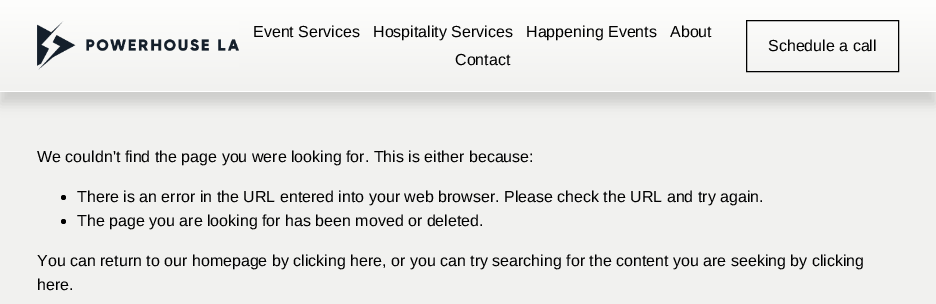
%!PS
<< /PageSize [936 304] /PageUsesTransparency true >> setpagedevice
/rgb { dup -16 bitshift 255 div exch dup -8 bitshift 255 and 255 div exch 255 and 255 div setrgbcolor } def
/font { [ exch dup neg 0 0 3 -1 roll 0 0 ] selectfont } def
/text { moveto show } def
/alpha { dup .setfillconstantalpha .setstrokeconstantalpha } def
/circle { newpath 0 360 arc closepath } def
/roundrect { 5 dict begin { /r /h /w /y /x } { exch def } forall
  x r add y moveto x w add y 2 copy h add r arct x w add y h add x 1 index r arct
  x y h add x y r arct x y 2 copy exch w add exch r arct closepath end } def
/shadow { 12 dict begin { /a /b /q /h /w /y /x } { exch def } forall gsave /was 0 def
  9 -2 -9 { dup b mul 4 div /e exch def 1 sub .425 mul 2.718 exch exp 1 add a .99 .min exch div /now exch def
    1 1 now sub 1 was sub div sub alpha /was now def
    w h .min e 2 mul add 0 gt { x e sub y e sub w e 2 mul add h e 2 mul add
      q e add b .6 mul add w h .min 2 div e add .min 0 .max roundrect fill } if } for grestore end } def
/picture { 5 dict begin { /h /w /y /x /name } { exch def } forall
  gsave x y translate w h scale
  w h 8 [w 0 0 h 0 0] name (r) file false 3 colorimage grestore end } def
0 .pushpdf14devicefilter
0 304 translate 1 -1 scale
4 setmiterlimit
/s1 { /Arimo-Regular 16 font 16#000000 rgb } def
16#F1F1EF rgb
0 0 936 304 rectfill
16#CDCDCB rgb
0 12 936 92 0 6 1 shadow
gsave 0 0 moveto 936 0 lineto 936 91 lineto 0 91 lineto closepath clip newpath
<< /ShadingType 2 /ColorSpace /DeviceRGB /Coords [468 0 468 92] /Extend [true true] /Function << /FunctionType 2 /Domain [0 1] /C0 [0.996 0.996 0.992] /C1 [0.945 0.945 0.937] /N 1 >> >> shfill grestore
(pic1.raw) 37 21 202 49 picture
s1
(Event Services) 253 37 text
(Hospitality Services) 373 37 text
(Happening Events) 526 37 text
(About) 670 37 text
(Contact) 455 65 text
746.5 20.5 152 51 rectstroke
(Schedule a call) 768 51 text
16#FFFFFF rgb
0 91 936 1 rectfill
s1
(We couldn't find the page you were looking for. This is either because:) 37 162 text
63.5 197.5 2.5 circle fill
(There is an error in the URL entered into your web browser. Please check the URL and try again.) 77 202 text
63.5 221.5 2.5 circle fill
(The page you are looking for has been moved or deleted.) 77 226 text
(You can return to our homepage by clicking here, or you can try searching for the content you are seeking by clicking) 37 266 text
(here.) 37 290 text
.poppdf14devicefilter showpage
